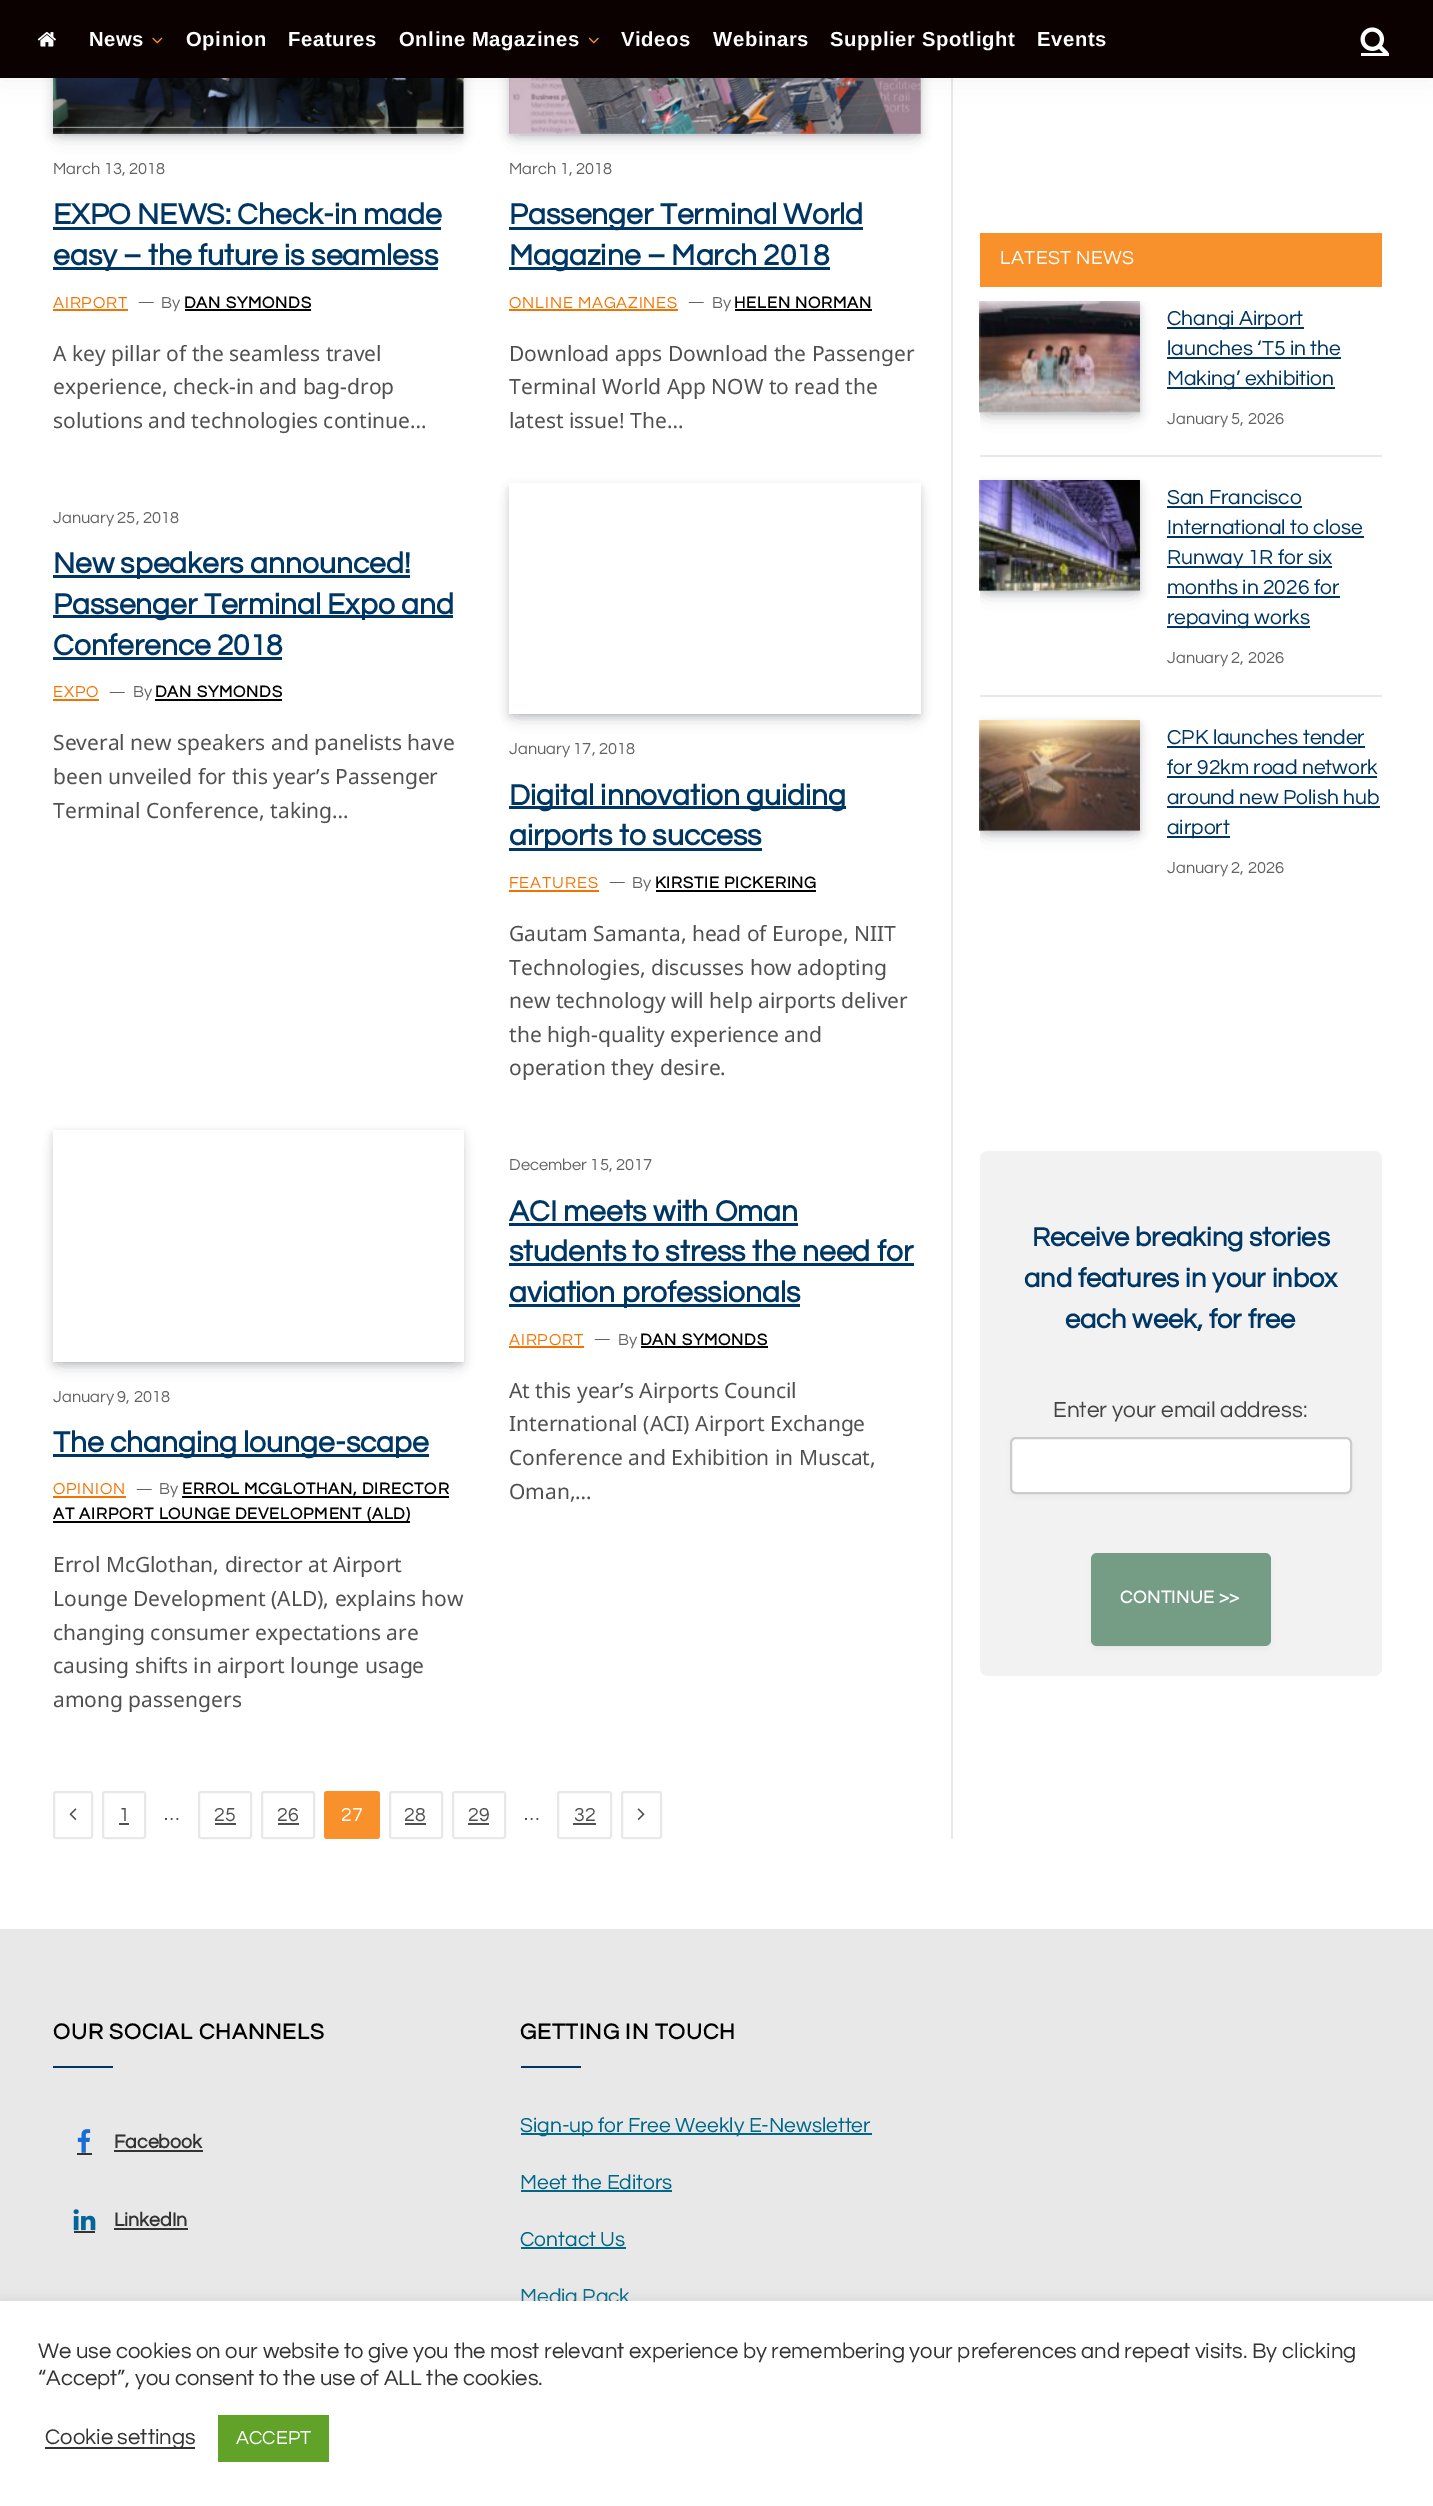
%!PS
<< /PageSize [1433 2506] /PageUsesTransparency true >> setpagedevice
/rgb { dup -16 bitshift 255 div exch dup -8 bitshift 255 and 255 div exch 255 and 255 div setrgbcolor } def
/font { [ exch dup neg 0 0 3 -1 roll 0 0 ] selectfont } def
/text { moveto show } def
/alpha { dup .setfillconstantalpha .setstrokeconstantalpha } def
/roundrect { 5 dict begin { /r /h /w /y /x } { exch def } forall
  x r add y moveto x w add y 2 copy h add r arct x w add y h add x 1 index r arct
  x y h add x y r arct x y 2 copy exch w add exch r arct closepath end } def
/shadow { 12 dict begin { /a /b /q /h /w /y /x } { exch def } forall gsave /was 0 def
  9 -2 -9 { dup b mul 4 div /e exch def 1 sub .425 mul 2.718 exch exp 1 add a .99 .min exch div /now exch def
    1 1 now sub 1 was sub div sub alpha /was now def
    w h .min e 2 mul add 0 gt { x e sub y e sub w e 2 mul add h e 2 mul add
      q e add b .6 mul add w h .min 2 div e add .min 0 .max roundrect fill } if } for grestore end } def
/picture { 5 dict begin { /h /w /y /x /name } { exch def } forall
  gsave x y translate w h scale
  w h 8 [w 0 0 h 0 0] name (r) file false 3 colorimage grestore end } def
0 .pushpdf14devicefilter
0 2506 translate 1 -1 scale
4 setmiterlimit
/s1 { /Questrial-Regular 16.5 font 16#636363 rgb } def
/s2 { /Questrial-Bold 30 font 16#003664 rgb } def
/s3 { /Questrial-Regular 15 font 16#636363 rgb } def
/s4 { /NotoSans-Regular 21 font 16#505050 rgb } def
/s5 { /Questrial-Regular 19.5 font 16#505050 rgb } def
/s6 { /Questrial-Regular 19.5 font 16#FFFFFF rgb } def
/s7 { /Questrial-Regular 21 font 16#003664 rgb } def
/s8 { /Questrial-Bold 27.25 font 16#003664 rgb } def
/s9 { /Questrial-Regular 22.5 font 16#444444 rgb } def
/s10 { /Questrial-Bold 19.5 font 16#333333 rgb } def
/s11 { /Questrial-Regular 21 font 16#006788 rgb } def
/s12 { /Questrial-Regular 22 font 16#333333 rgb } def
16#FFFFFF rgb
0 0 1433 2506 rectfill
16#070A19 rgb
62 -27 393 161 0 9 0.2 shadow
54 -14 408 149 0 4.5 0.2 shadow
(pic5.raw) 53 78 411 56 picture
518 -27 394 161 0 9 0.2 shadow
510 -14 410 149 0 4.5 0.2 shadow
(pic6.raw) 509 78 412 56 picture
16#E8E8E8 rgb
951 78 2 1761 rectfill
16#000000 rgb
0 0 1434 78 0 15 0.05 shadow
16#0A0100 rgb
0 0 1433 78 rectfill
(pic1.raw) 37 32 19 15 picture
/LiberationSans-Bold 20.25 font
16#FFFFFF rgb
89 46 moveto 0.6 0 (News) ashow
(pic2.raw) 152 37 11 7 picture
186 46 moveto 0.6 0 (Opinion) ashow
288 46 moveto 0.6 0 (Features) ashow
399 46 moveto 0.6 0 (Online Magazines) ashow
(pic3.raw) 588 37 11 7 picture
621 46 moveto 0.6 0 (Videos) ashow
713 46 moveto 0.6 0 (Webinars) ashow
830 46 moveto 0.6 0 (Supplier Spotlight) ashow
1037 46 moveto 0.6 0 (Events) ashow
(pic4.raw) 1360 27 29 26 picture
1361 53 28 3 rectfill
s1
(March 13, 2018) 53 174 text
s2
(EXPO NEWS: Check-in made) 53 224 text
53 227 388 3 rectfill
53 267 385 3 rectfill
(easy – the future is seamless) 53 265 text
/Questrial-Regular 16.5 font
16#F47200 rgb
53 308 moveto 0.85 0 (AIRPORT) ashow
53 309 75 2 rectfill
s3
(—) 138 307 text
s1
(By) 161 308 text
/Questrial-Bold 16.5 font
16#000000 rgb
184 308 moveto 0.85 0 (DAN SYMONDS) ashow
185 309 126 2 rectfill
s4
(A key pillar of the seamless travel) 53 361 text
(experience, check-in and bag-drop) 53 394 text
(solutions and technologies continue…) 53 428 text
s1
(March 1, 2018) 509 174 text
16#003664 rgb
509 227 354 3 rectfill
s2
(Passenger Terminal World) 509 224 text
509 267 321 3 rectfill
(Magazine – March 2018) 509 265 text
/Questrial-Regular 16.5 font
16#F47200 rgb
509 308 moveto 0.85 0 (ONLINE MAGAZINES) ashow
509 309 169 2 rectfill
s3
(—) 688 307 text
s1
(By) 712 308 text
/Questrial-Bold 16.5 font
16#000000 rgb
734 308 moveto 0.85 0 (HELEN NORMAN) ashow
735 309 137 2 rectfill
s4
(Download apps Download the Passenger) 509 361 text
(Terminal World App NOW to read the) 509 394 text
(latest issue! The…) 509 428 text
s1
(January 25, 2018) 53 523 text
16#003664 rgb
53 575 357 3 rectfill
s2
(New speakers announced!) 53 573 text
53 615 400 3 rectfill
(Passenger Terminal Expo and) 53 614 text
(Conference 2018) 53 655 text
53 657 229 3 rectfill
/Questrial-Regular 16.5 font
16#F47200 rgb
53 697 moveto 0.85 0 (EXPO) ashow
53 699 46 2 rectfill
s3
(—) 109 697 text
s1
(By) 133 697 text
/Questrial-Bold 16.5 font
16#000000 rgb
155 697 moveto 0.85 0 (DAN SYMONDS) ashow
155 699 127 2 rectfill
s4
(Several new speakers and panelists have) 53 750 text
(been unveiled for this year’s Passenger) 53 784 text
(Terminal Conference, taking…) 53 818 text
gsave
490 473 moveto 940 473 lineto 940 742 lineto 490 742 lineto closepath 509 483 moveto 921 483 lineto 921 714 lineto 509 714 lineto closepath eoclip newpath
16#070A19 rgb
518 501 394 213 0 9 0.2 shadow
grestore
gsave
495 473 moveto 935 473 lineto 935 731 lineto 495 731 lineto closepath 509 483 moveto 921 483 lineto 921 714 lineto 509 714 lineto closepath eoclip newpath
16#070A19 rgb
510 488 410 228 0 4.5 0.2 shadow
grestore
s1
(January 17, 2018) 509 754 text
16#003664 rgb
509 806 337 3 rectfill
s2
(Digital innovation guiding) 509 805 text
509 848 253 3 rectfill
(airports to success) 509 845 text
/Questrial-Regular 16.5 font
16#F47200 rgb
509 888 moveto 0.85 0 (FEATURES) ashow
509 890 90 2 rectfill
s3
(—) 609 887 text
s1
(By) 632 888 text
/Questrial-Bold 16.5 font
16#000000 rgb
655 888 moveto 0.85 0 (KIRSTIE PICKERING) ashow
656 890 160 2 rectfill
s4
(Gautam Samanta, head of Europe, NIIT) 509 941 text
(Technologies, discusses how adopting) 509 975 text
(new technology will help airports deliver) 509 1008 text
(the high-quality experience and) 509 1042 text
(operation they desire.) 509 1075 text
s1
(December 15, 2017) 509 1170 text
s2
(ACI meets with Oman) 509 1221 text
509 1223 289 3 rectfill
(students to stress the need for) 509 1261 text
509 1263 405 3 rectfill
509 1304 291 3 rectfill
(aviation professionals) 509 1302 text
/Questrial-Regular 16.5 font
16#F47200 rgb
509 1345 moveto 0.85 0 (AIRPORT) ashow
509 1346 75 2 rectfill
s3
(—) 594 1344 text
s1
(By) 618 1345 text
/Questrial-Bold 16.5 font
16#000000 rgb
640 1345 moveto 0.85 0 (DAN SYMONDS) ashow
641 1346 127 2 rectfill
s4
(At this year’s Airports Council) 509 1398 text
(International \(ACI\) Airport Exchange) 509 1431 text
(Conference and Exhibition in Muscat,) 509 1465 text
(Oman,…) 509 1499 text
gsave
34 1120 moveto 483 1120 lineto 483 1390 lineto 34 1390 lineto closepath 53 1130 moveto 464 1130 lineto 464 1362 lineto 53 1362 lineto closepath eoclip newpath
16#070A19 rgb
62 1148 393 214 0 9 0.2 shadow
grestore
gsave
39 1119 moveto 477 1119 lineto 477 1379 lineto 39 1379 lineto closepath 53 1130 moveto 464 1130 lineto 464 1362 lineto 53 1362 lineto closepath eoclip newpath
16#070A19 rgb
54 1134 408 230 0 4.5 0.2 shadow
grestore
s1
(January 9, 2018) 53 1402 text
16#003664 rgb
53 1454 376 3 rectfill
s2
(The changing lounge-scape) 53 1452 text
s3
(—) 136 1494 text
s1
(By) 159 1494 text
/Questrial-Bold 16.5 font
16#000000 rgb
182 1494 moveto 0.85 0 (ERROL MCGLOTHAN, DIRECTOR) ashow
182 1496 267 2 rectfill
53 1521 357 2 rectfill
53 1519 moveto 0.85 0 (AT AIRPORT LOUNGE DEVELOPMENT \(ALD\)) ashow
/Questrial-Regular 16.5 font
16#F47200 rgb
53 1494 moveto 0.85 0 (OPINION) ashow
53 1496 73 2 rectfill
s4
(Errol McGlothan, director at Airport) 53 1572 text
(Lounge Development \(ALD\), explains how) 53 1606 text
(changing consumer expectations are) 53 1640 text
(causing shifts in airport lounge usage) 53 1673 text
(among passengers) 53 1707 text
16#E8E8E8 rgb
2 setlinewidth
54 1792 38 46 2 roundrect stroke
(pic7.raw) 69 1808 8 13 picture
103 1792 42 46 2 roundrect stroke
s5
(1) 119 1821 text
119 1823 10 2 rectfill
(…) 164 1820 text
16#E8E8E8 rgb
199 1792 52 46 2 roundrect stroke
s5
(25) 214 1821 text
215 1823 21 2 rectfill
16#E8E8E8 rgb
262 1792 52 46 2 roundrect stroke
s5
(26) 277 1821 text
278 1823 21 2 rectfill
16#F8912B rgb
324 1791 56 48 3 roundrect fill
s6
(27) 341 1821 text
16#E8E8E8 rgb
390 1792 52 46 2 roundrect stroke
s5
(28) 404 1821 text
405 1823 21 2 rectfill
16#E8E8E8 rgb
453 1792 52 46 2 roundrect stroke
s5
(29) 468 1821 text
468 1823 21 2 rectfill
(…) 524 1820 text
16#E8E8E8 rgb
558 1792 53 46 2 roundrect stroke
s5
(32) 574 1821 text
573 1823 23 2 rectfill
16#E8E8E8 rgb
622 1792 39 46 2 roundrect stroke
(pic8.raw) 637 1808 8 13 picture
16#F8912B rgb
980 233 402 54 rectfill
16#FFFFFF rgb
1000 264 moveto 0.4 0 (LATEST NEWS) ashow
gsave
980 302 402 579 rectclip
16#070A19 rgb
989 320 142 93 0 9 0.2 shadow
981 306 158 108 0 4.5 0.2 shadow
grestore
(pic9.raw) 979 301 161 112 picture
16#003664 rgb
1167 327 137 2 rectfill
s7
(Changi Airport) 1167 325 text
(launches ‘T5 in the) 1167 355 text
1167 357 174 2 rectfill
1167 387 168 2 rectfill
(Making’ exhibition) 1167 385 text
s1
(January 5, 2026) 1167 424 text
16#E8E8E8 rgb
980 455 402 2 rectfill
gsave
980 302 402 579 rectclip
16#070A19 rgb
989 498 142 93 0 9 0.2 shadow
981 485 158 108 0 4.5 0.2 shadow
grestore
(pic10.raw) 979 480 161 111 picture
s7
(San Francisco) 1167 504 text
1167 506 135 2 rectfill
(International to close) 1167 534 text
1167 536 197 2 rectfill
1167 566 165 2 rectfill
(Runway 1R for six) 1167 564 text
(months in 2026 for) 1167 594 text
1167 596 173 2 rectfill
1167 626 143 2 rectfill
(repaving works) 1167 624 text
s1
(January 2, 2026) 1167 663 text
16#E8E8E8 rgb
980 695 402 2 rectfill
gsave
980 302 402 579 rectclip
16#070A19 rgb
989 738 142 93 0 9 0.2 shadow
981 725 158 108 0 4.5 0.2 shadow
grestore
(pic11.raw) 979 720 161 111 picture
s7
(CPK launches tender) 1167 744 text
1167 746 198 2 rectfill
(for 92km road network) 1167 774 text
1167 776 210 2 rectfill
(around new Polish hub) 1167 804 text
1167 806 213 2 rectfill
1167 836 63 2 rectfill
(airport) 1167 834 text
s1
(January 2, 2026) 1167 873 text
16#F2F2F2 rgb
980 1151 402 525 8 roundrect fill
s8
(Receive breaking stories) 1032 1246 text
(and features in your inbox) 1024 1287 text
(each week, for free) 1065 1328 text
s9
(Enter your email address:) 1053 1417 text
16#000000 rgb
1016 1446 330 45 0 5 0.1 shadow
16#FFFFFF rgb
1011 1438 340 55 5 roundrect gsave fill grestore
16#CCCCCC rgb
stroke
16#000000 rgb
1097 1562 168 81 0 5 0.16 shadow
16#759C85 rgb
1091 1553 180 93 6 roundrect fill
/Questrial-Bold 18 font
16#FFFFFF rgb
1120 1603 moveto 0.5 0 (CONTINUE >>) ashow
16#E8E8E8 rgb
0 1929 1433 372 rectfill
/Questrial-Bold 22.5 font
16#000000 rgb
53 2039 moveto 0.9 0 (OUR SOCIAL CHANNELS) ashow
16#003664 rgb
53 2066 60 2 rectfill
(pic12.raw) 77 2129 14 24 picture
16#333333 rgb
77 2153 15 2 rectfill
s10
(Facebook) 114 2148 text
114 2150 89 2 rectfill
(pic13.raw) 73 2209 23 22 picture
74 2231 21 2 rectfill
(LinkedIn) 114 2226 text
114 2228 74 2 rectfill
/Questrial-Bold 22.5 font
16#000000 rgb
520 2039 moveto 0.9 0 (GETTING IN TOUCH) ashow
16#003664 rgb
521 2066 60 2 rectfill
16#006788 rgb
521 2133 351 2 rectfill
s11
(Sign-up for Free Weekly E-Newsletter) 520 2132 text
(Meet the Editors) 520 2189 text
521 2190 151 2 rectfill
(Contact Us) 520 2246 text
521 2247 105 2 rectfill
(Media Pack) 520 2303 text
16#ACABAB rgb
0 2300 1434 205 0 7.5 0.3 shadow
16#FFFFFF rgb
0 2301 1433 205 rectfill
s12
(We use cookies on our website to give you the most relevant experience by remembering your preferences and repeat visits. By clicking) 38 2358 text
(“Accept”, you consent to the use of ALL the cookies.) 38 2385 text
45 2447 150 2 rectfill
(Cookie settings) 45 2444 text
16#61A229 rgb
218 2415 111 47 rectfill
s6
(ACCEPT) 236 2444 text
.poppdf14devicefilter showpage
